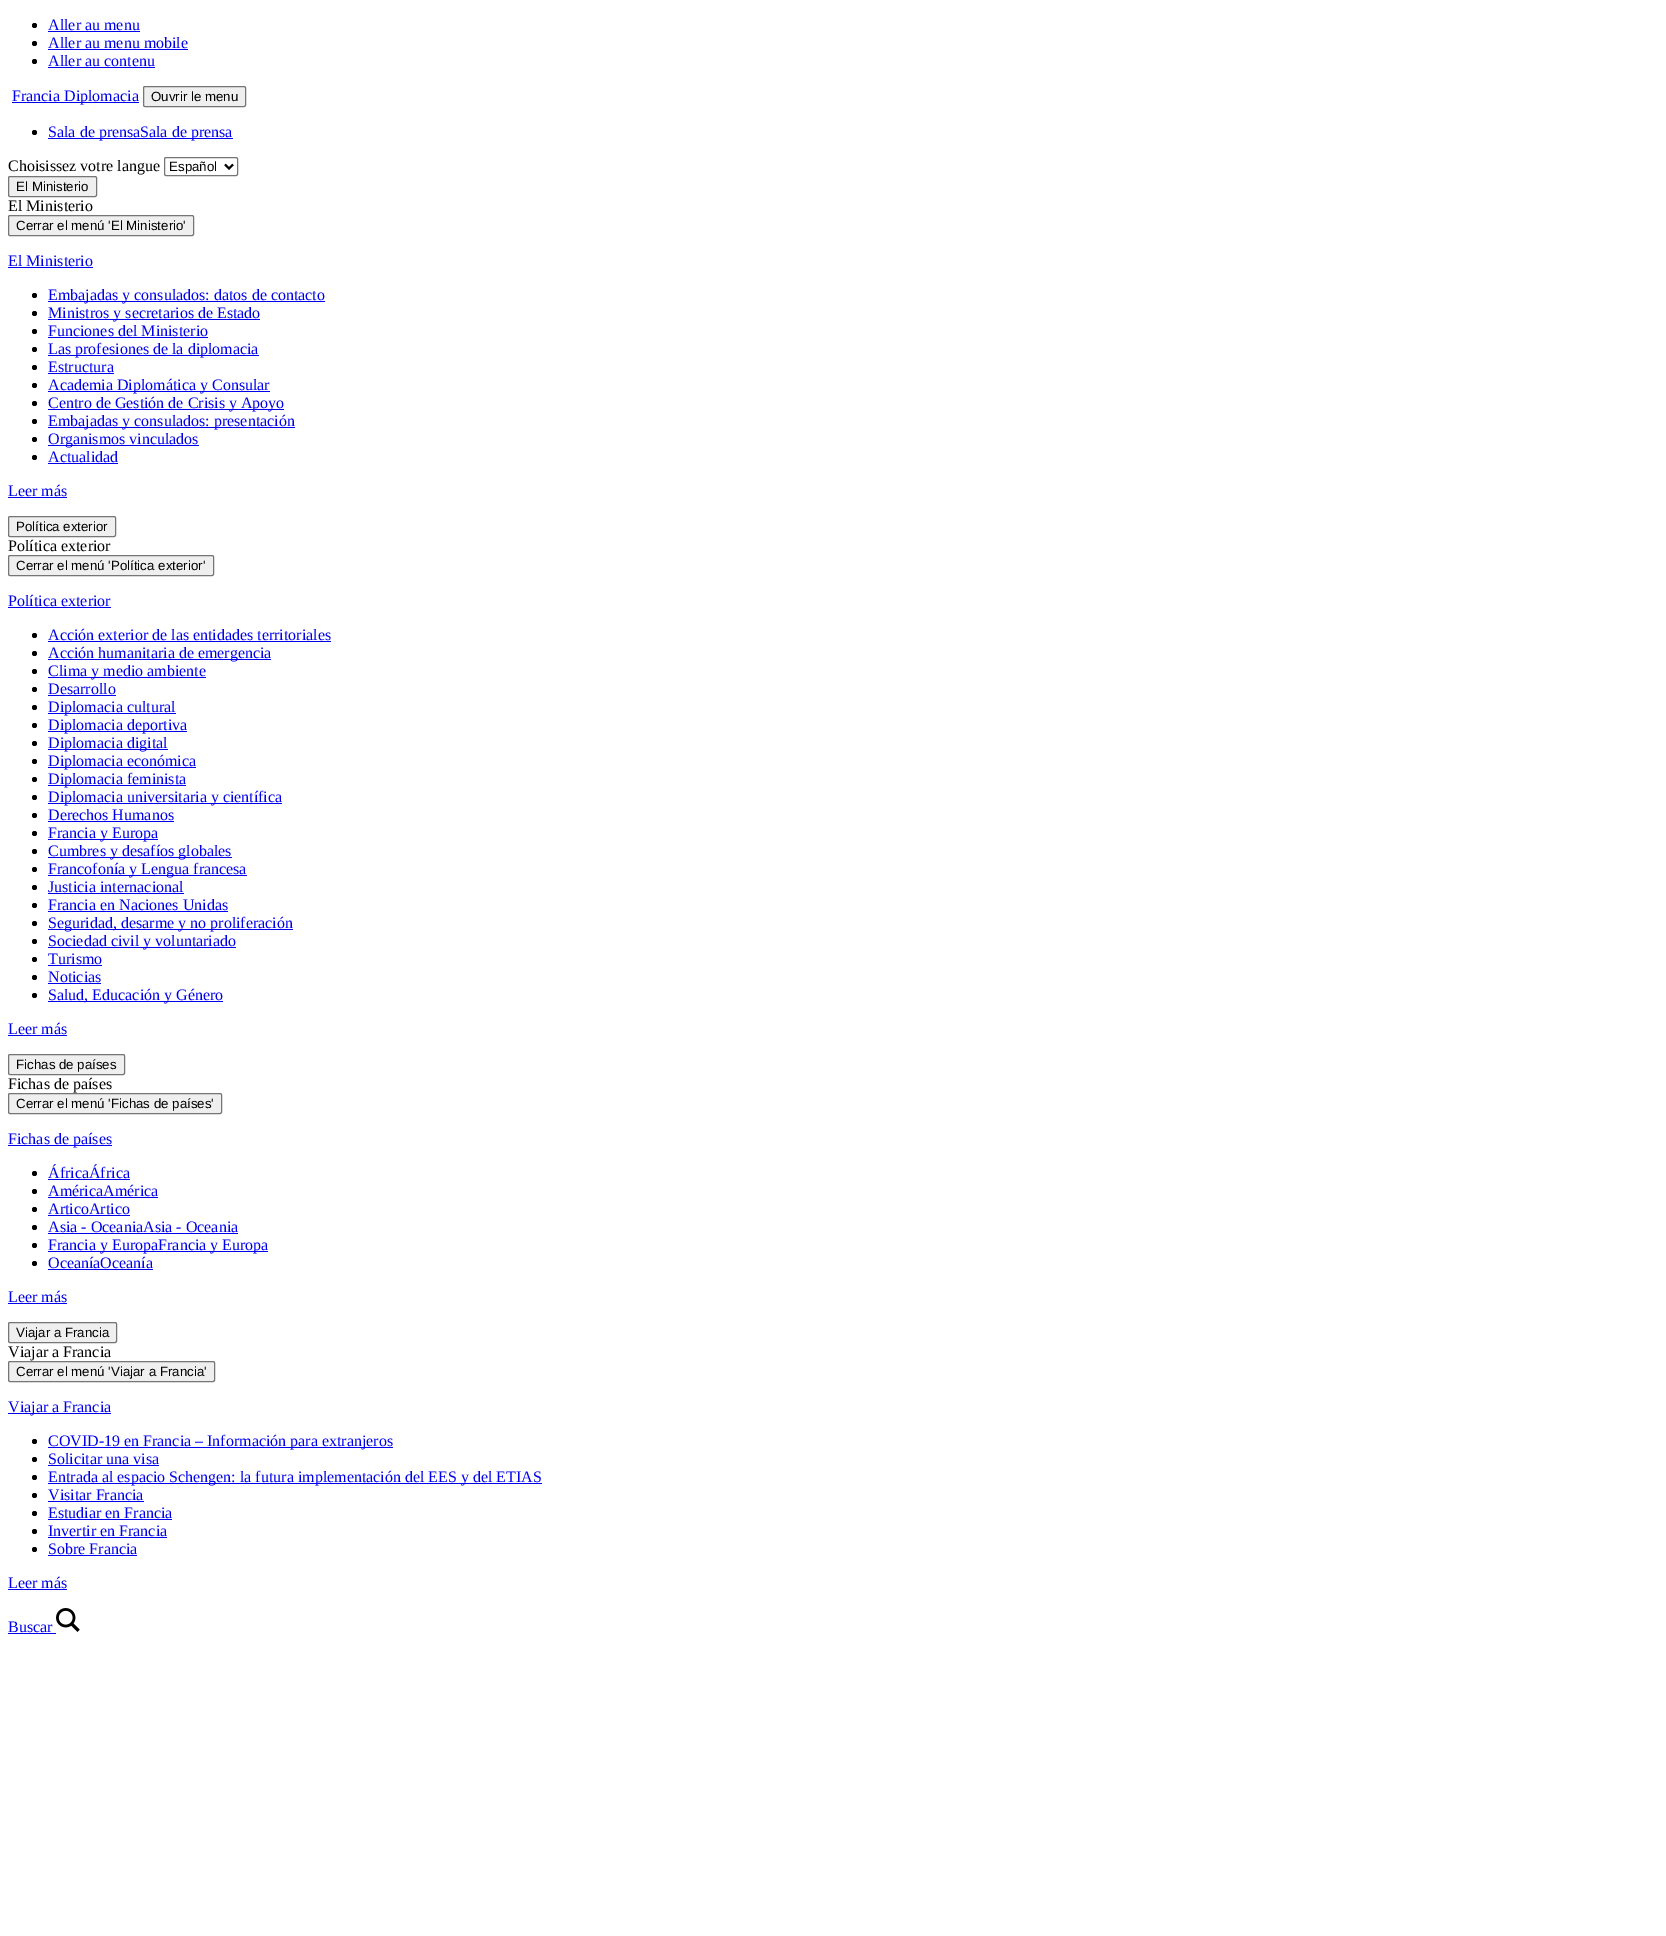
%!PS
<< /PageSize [1666 1936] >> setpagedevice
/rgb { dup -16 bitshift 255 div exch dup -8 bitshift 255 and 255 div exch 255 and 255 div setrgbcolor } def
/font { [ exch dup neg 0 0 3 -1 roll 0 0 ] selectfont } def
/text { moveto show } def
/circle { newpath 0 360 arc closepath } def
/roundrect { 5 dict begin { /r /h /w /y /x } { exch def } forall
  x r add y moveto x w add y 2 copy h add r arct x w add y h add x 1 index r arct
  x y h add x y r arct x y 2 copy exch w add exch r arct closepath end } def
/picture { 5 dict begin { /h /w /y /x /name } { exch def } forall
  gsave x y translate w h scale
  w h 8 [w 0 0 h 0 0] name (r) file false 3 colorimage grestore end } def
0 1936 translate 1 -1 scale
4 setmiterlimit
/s1 { /LiberationSerif-Regular 16 font 16#0000EE rgb } def
/s2 { /LiberationSans-Regular 13.3 font 16#000000 rgb } def
/s3 { /LiberationSerif-Regular 16 font 16#000000 rgb } def
16#FFFFFF rgb
0 0 1666 1936 rectfill
16#000000 rgb
34.5 25.5 2.5 circle fill
s1
(Aller au menu) 48 30 text
48 31 92 1 rectfill
16#000000 rgb
34.5 43.5 2.5 circle fill
s1
(Aller au menu mobile) 48 48 text
48 49 140 1 rectfill
16#000000 rgb
34.5 61.5 2.5 circle fill
s1
(Aller au contenu) 48 66 text
48 67 107 1 rectfill
12 102 127 1 rectfill
(Francia Diplomacia) 12 101 text
16#EFEFEF rgb
143.5 86.5 102 20 1.5 roundrect gsave fill grestore
16#767676 rgb
stroke
s2
(Ouvrir le menu) 151 101 text
34.5 132.5 2.5 circle fill
16#0000EE rgb
48 138 92 1 rectfill
s1
(Sala de prensa) 48 137 text
140 138 93 1 rectfill
(Sala de prensa) 140 137 text
s3
(Choisissez votre langue) 8 171 text
16#767676 rgb
164.5 157.5 73 18 1.5 roundrect stroke
16#000000 rgb
2 setlinewidth
225 164.5 moveto 229 168.5 lineto 233 164.5 lineto stroke
s2
(Español) 169 171 text
16#EFEFEF rgb
8.5 176.5 88 20 1.5 roundrect gsave fill grestore
16#767676 rgb
1 setlinewidth
stroke
s2
(El Ministerio) 16 191 text
s3
(El Ministerio) 8 211 text
16#EFEFEF rgb
8.5 215.5 185 20 1.5 roundrect gsave fill grestore
16#767676 rgb
stroke
s2
(Cerrar el menú 'El Ministerio') 16 230 text
s1
(El Ministerio) 8 266 text
8 267 85 1 rectfill
16#000000 rgb
34.5 295.5 2.5 circle fill
16#0000EE rgb
48 301 277 1 rectfill
(Embajadas y consulados: datos de contacto) 48 300 text
16#000000 rgb
34.5 313.5 2.5 circle fill
16#0000EE rgb
48 319 212 1 rectfill
(Ministros y secretarios de Estado) 48 318 text
16#000000 rgb
34.5 331.5 2.5 circle fill
s1
(Funciones del Ministerio) 48 336 text
48 337 160 1 rectfill
16#000000 rgb
34.5 349.5 2.5 circle fill
16#0000EE rgb
48 355 211 1 rectfill
(Las profesiones de la diplomacia) 48 354 text
16#000000 rgb
34.5 367.5 2.5 circle fill
s1
(Estructura) 48 372 text
48 373 66 1 rectfill
16#000000 rgb
34.5 385.5 2.5 circle fill
16#0000EE rgb
48 391 222 1 rectfill
(Academia Diplomática y Consular) 48 390 text
16#000000 rgb
34.5 403.5 2.5 circle fill
16#0000EE rgb
48 409 236 1 rectfill
(Centro de Gestión de Crisis y Apoyo) 48 408 text
16#000000 rgb
34.5 421.5 2.5 circle fill
16#0000EE rgb
48 427 247 1 rectfill
(Embajadas y consulados: presentación) 48 426 text
16#000000 rgb
34.5 439.5 2.5 circle fill
16#0000EE rgb
48 445 151 1 rectfill
(Organismos vinculados) 48 444 text
16#000000 rgb
34.5 457.5 2.5 circle fill
s1
(Actualidad) 48 462 text
48 463 70 1 rectfill
(Leer más) 8 496 text
8 497 59 1 rectfill
16#EFEFEF rgb
8.5 516.5 107 20 1.5 roundrect gsave fill grestore
16#767676 rgb
stroke
s2
(Política exterior) 16 531 text
s3
(Política exterior) 8 551 text
16#EFEFEF rgb
8.5 555.5 205 20 1.5 roundrect gsave fill grestore
16#767676 rgb
stroke
s2
(Cerrar el menú 'Política exterior') 16 570 text
s1
(Política exterior) 8 606 text
8 607 103 1 rectfill
16#000000 rgb
34.5 635.5 2.5 circle fill
s1
(Acción exterior de las entidades territoriales) 48 640 text
48 641 283 1 rectfill
16#000000 rgb
34.5 653.5 2.5 circle fill
16#0000EE rgb
48 659 223 1 rectfill
(Acción humanitaria de emergencia) 48 658 text
16#000000 rgb
34.5 671.5 2.5 circle fill
16#0000EE rgb
48 677 158 1 rectfill
(Clima y medio ambiente) 48 676 text
16#000000 rgb
34.5 689.5 2.5 circle fill
s1
(Desarrollo) 48 694 text
48 695 68 1 rectfill
16#000000 rgb
34.5 707.5 2.5 circle fill
16#0000EE rgb
48 713 128 1 rectfill
(Diplomacia cultural) 48 712 text
16#000000 rgb
34.5 725.5 2.5 circle fill
16#0000EE rgb
48 731 139 1 rectfill
(Diplomacia deportiva) 48 730 text
16#000000 rgb
34.5 743.5 2.5 circle fill
16#0000EE rgb
48 749 120 1 rectfill
(Diplomacia digital) 48 748 text
16#000000 rgb
34.5 761.5 2.5 circle fill
16#0000EE rgb
48 767 148 1 rectfill
(Diplomacia económica) 48 766 text
16#000000 rgb
34.5 779.5 2.5 circle fill
16#0000EE rgb
48 785 138 1 rectfill
(Diplomacia feminista) 48 784 text
16#000000 rgb
34.5 797.5 2.5 circle fill
16#0000EE rgb
48 803 234 1 rectfill
(Diplomacia universitaria y científica) 48 802 text
16#000000 rgb
34.5 815.5 2.5 circle fill
s1
(Derechos Humanos) 48 820 text
48 821 126 1 rectfill
16#000000 rgb
34.5 833.5 2.5 circle fill
16#0000EE rgb
48 839 110 1 rectfill
(Francia y Europa) 48 838 text
16#000000 rgb
34.5 851.5 2.5 circle fill
16#0000EE rgb
48 857 184 1 rectfill
(Cumbres y desafíos globales) 48 856 text
16#000000 rgb
34.5 869.5 2.5 circle fill
16#0000EE rgb
48 875 199 1 rectfill
(Francofonía y Lengua francesa) 48 874 text
16#000000 rgb
34.5 887.5 2.5 circle fill
s1
(Justicia internacional) 48 892 text
48 893 136 1 rectfill
16#000000 rgb
34.5 905.5 2.5 circle fill
s1
(Francia en Naciones Unidas) 48 910 text
48 911 180 1 rectfill
16#000000 rgb
34.5 923.5 2.5 circle fill
16#0000EE rgb
48 929 245 1 rectfill
(Seguridad, desarme y no proliferación) 48 928 text
16#000000 rgb
34.5 941.5 2.5 circle fill
16#0000EE rgb
48 947 188 1 rectfill
(Sociedad civil y voluntariado) 48 946 text
16#000000 rgb
34.5 959.5 2.5 circle fill
s1
(Turismo) 48 964 text
48 965 54 1 rectfill
16#000000 rgb
34.5 977.5 2.5 circle fill
s1
(Noticias) 48 982 text
48 983 53 1 rectfill
16#000000 rgb
34.5 995.5 2.5 circle fill
16#0000EE rgb
48 1001 175 1 rectfill
(Salud, Educación y Género) 48 1000 text
(Leer más) 8 1034 text
8 1035 59 1 rectfill
16#EFEFEF rgb
8.5 1054.5 116 20 1.5 roundrect gsave fill grestore
16#767676 rgb
stroke
s2
(Fichas de países) 16 1069 text
s3
(Fichas de países) 8 1089 text
16#EFEFEF rgb
8.5 1093.5 213 20 1.5 roundrect gsave fill grestore
16#767676 rgb
stroke
s2
(Cerrar el menú 'Fichas de países') 16 1108 text
16#0000EE rgb
8 1145 104 1 rectfill
s1
(Fichas de países) 8 1144 text
16#000000 rgb
34.5 1173.5 2.5 circle fill
s1
(ÁfricaÁfrica) 48 1178 text
48 1179 82 1 rectfill
16#000000 rgb
34.5 1191.5 2.5 circle fill
s1
(AméricaAmérica) 48 1196 text
48 1197 110 1 rectfill
16#000000 rgb
34.5 1209.5 2.5 circle fill
s1
(ArticoArtico) 48 1214 text
48 1215 82 1 rectfill
16#000000 rgb
34.5 1227.5 2.5 circle fill
s1
(Asia - OceaniaAsia - Oceania) 48 1232 text
48 1233 190 1 rectfill
16#000000 rgb
34.5 1245.5 2.5 circle fill
16#0000EE rgb
48 1251 220 1 rectfill
(Francia y EuropaFrancia y Europa) 48 1250 text
16#000000 rgb
34.5 1263.5 2.5 circle fill
s1
(OceaníaOceanía) 48 1268 text
48 1269 105 1 rectfill
(Leer más) 8 1302 text
8 1303 59 1 rectfill
16#EFEFEF rgb
8.5 1322.5 108 20 1.5 roundrect gsave fill grestore
16#767676 rgb
stroke
s2
(Viajar a Francia) 16 1337 text
s3
(Viajar a Francia) 8 1357 text
16#EFEFEF rgb
8.5 1361.5 206 20 1.5 roundrect gsave fill grestore
16#767676 rgb
stroke
s2
(Cerrar el menú 'Viajar a Francia') 16 1376 text
16#0000EE rgb
8 1413 103 1 rectfill
s1
(Viajar a Francia) 8 1412 text
16#000000 rgb
34.5 1441.5 2.5 circle fill
16#0000EE rgb
48 1447 345 1 rectfill
(COVID-19 en Francia – Información para extranjeros) 48 1446 text
16#000000 rgb
34.5 1459.5 2.5 circle fill
s1
(Solicitar una visa) 48 1464 text
48 1465 111 1 rectfill
16#000000 rgb
34.5 1477.5 2.5 circle fill
16#0000EE rgb
48 1483 494 1 rectfill
(Entrada al espacio Schengen: la futura implementación del EES y del ETIAS) 48 1482 text
16#000000 rgb
34.5 1495.5 2.5 circle fill
s1
(Visitar Francia) 48 1500 text
48 1501 96 1 rectfill
16#000000 rgb
34.5 1513.5 2.5 circle fill
s1
(Estudiar en Francia) 48 1518 text
48 1519 124 1 rectfill
16#000000 rgb
34.5 1531.5 2.5 circle fill
s1
(Invertir en Francia) 48 1536 text
48 1537 119 1 rectfill
16#000000 rgb
34.5 1549.5 2.5 circle fill
s1
(Sobre Francia) 48 1554 text
48 1555 89 1 rectfill
(Leer más) 8 1588 text
8 1589 59 1 rectfill
(Buscar) 8 1632 text
8 1633 48 1 rectfill
(pic1.raw) 56 1608 24 24 picture
showpage
